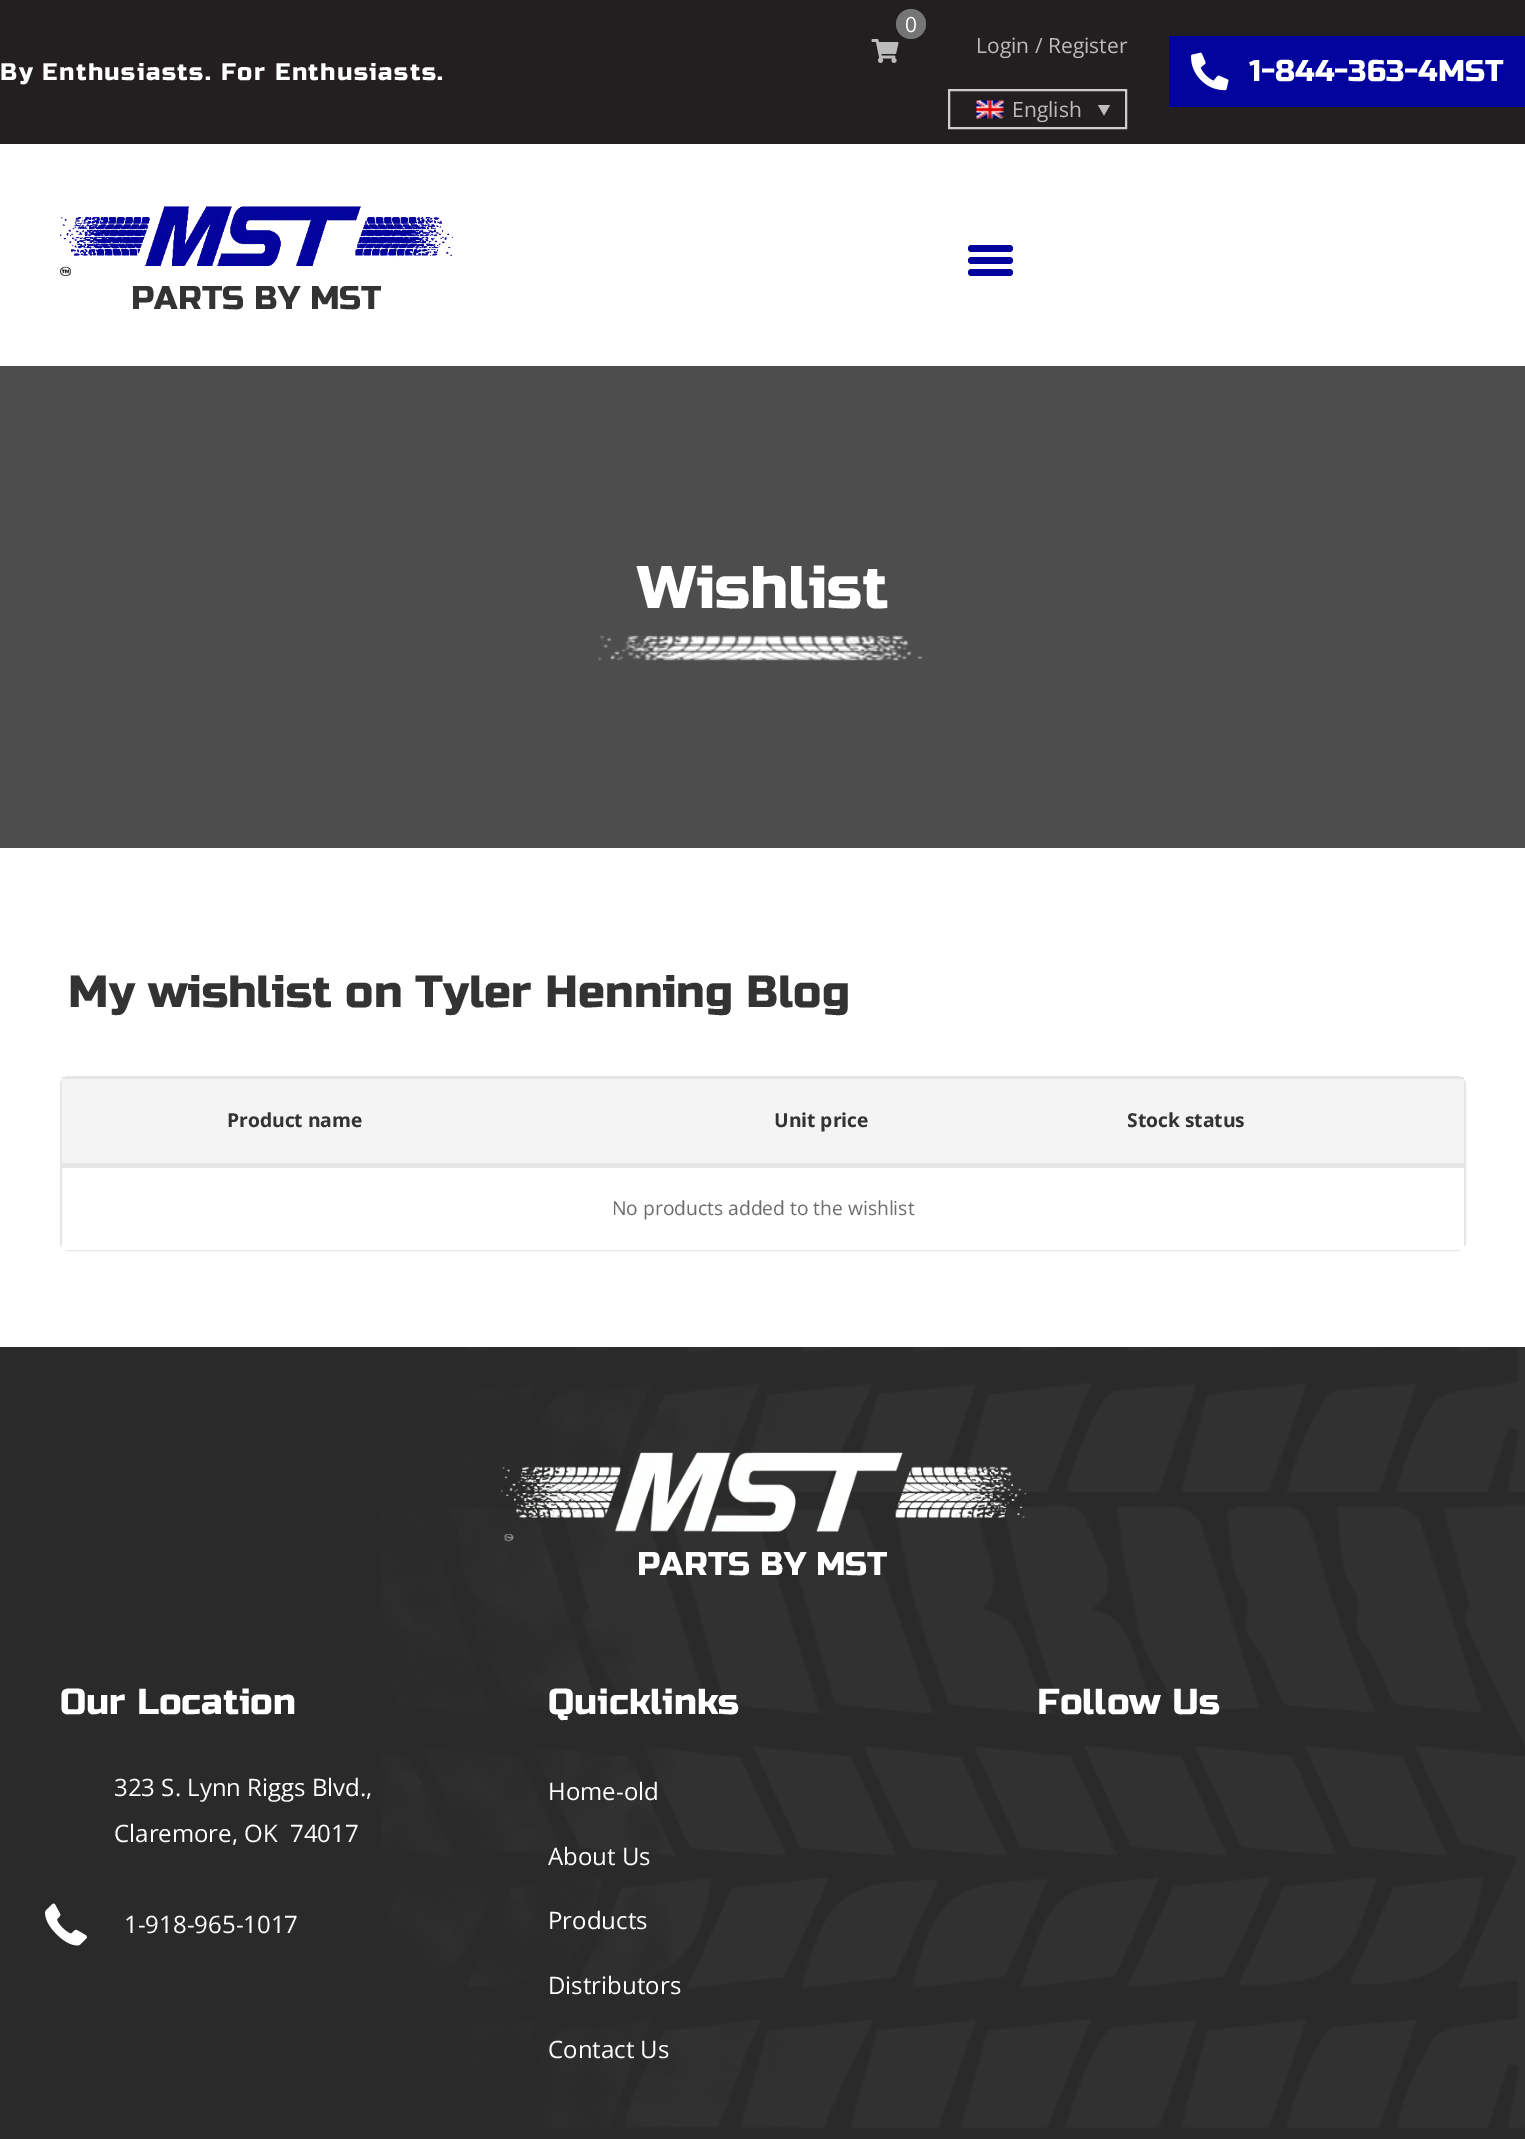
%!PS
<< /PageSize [1525 2139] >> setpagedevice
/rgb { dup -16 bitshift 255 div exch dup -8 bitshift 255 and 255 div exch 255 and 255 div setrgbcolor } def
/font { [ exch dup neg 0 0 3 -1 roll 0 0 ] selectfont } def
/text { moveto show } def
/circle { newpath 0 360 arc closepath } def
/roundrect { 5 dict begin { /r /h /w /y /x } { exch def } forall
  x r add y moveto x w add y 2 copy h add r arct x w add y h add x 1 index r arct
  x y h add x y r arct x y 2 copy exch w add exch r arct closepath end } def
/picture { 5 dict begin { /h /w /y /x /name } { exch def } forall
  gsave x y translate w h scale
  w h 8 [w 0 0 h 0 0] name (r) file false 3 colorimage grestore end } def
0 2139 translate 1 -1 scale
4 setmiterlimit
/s1 { /OpenSans-Regular 21 font 16#FFFFFF rgb } def
/s2 { /OpenSans-Regular 21 font 16#BCBCBC rgb } def
/s3 { /RussoOne-Regular 30 font 16#FFFFFF rgb } def
/s4 { /RussoOne-Regular 33 font 16#333333 rgb } def
/s5 { /RussoOne-Regular 60 font 16#FFFFFF rgb } def
/s6 { /RussoOne-Regular 45 font 16#333333 rgb } def
/s7 { /OpenSans-Bold 19.25 font 16#333333 rgb } def
/s8 { /OpenSans-Regular 19.25 font 16#6D6C6C rgb } def
/s9 { /RussoOne-Regular 33 font 16#FFFFFF rgb } def
/s10 { /RussoOne-Regular 36 font 16#FFFFFF rgb } def
/s11 { /OpenSans-Regular 24 font 16#FFFFFF rgb } def
16#FFFFFF rgb
0 0 1525 2139 rectfill
16#231F20 rgb
0 0 1525 144 rectfill
/RussoOne-Regular 24 font
16#FFFFFF rgb
0 80 moveto 1.5 0 (By Enthusiasts. For Enthusiasts.) ashow
16#757575 rgb
911 24 15 circle fill
s1
(0) 905 32 text
(pic1.raw) 871 39 28 24 picture
s2
(Login / Register) 976 53 text
16#CDCDCD rgb
2 setlinewidth
949 90 177 38 rectstroke
(pic2.raw) 976 100 28 19 picture
s2
(English) 1012 117 text
1098 105 moveto 1110 105 lineto 1104 115.5 lineto closepath fill
16#03049E rgb
1169 36 356 71 rectfill
(pic3.raw) 1191 52 38 39 picture
s3
(1-844-363-4MST) 1249 81 text
16#03049E rgb
968 257 45 7 3.5 roundrect fill
968 245 45 7 3.5 roundrect fill
968 269 45 7 3.5 roundrect fill
(pic4.raw) 60 206 393 70 picture
s4
(PARTS BY MST) 131 309 text
16#4D4D4D rgb
0 366 1525 482 rectfill
s5
(Wishlist) 637 608 text
(pic5.raw) 598 635 325 26 picture
s6
(My wishlist on Tyler Henning Blog) 68 1007 text
16#E6E6E6 rgb
61 1077 1404 173 8 roundrect stroke
16#F4F4F4 rgb
62 1079 1402 84 rectfill
16#E6E6E6 rgb
62 1077 30 2 rectfill
62 1163 1402 5 rectfill
92 1078 1291 1 rectfill
1383 1077 81 2 rectfill
s7
(Product name) 227 1127 text
(Unit price) 774 1127 text
(Stock status) 1127 1127 text
16#FFFFFF rgb
62 1243 1402 7 rectfill
s8
(No products added to the wishlist) 612 1215 text
16#2A2A2A rgb
0 1347 1525 792 rectfill
(pic6.raw) 381 1347 1144 781 picture
(pic7.raw) 501 1452 525 90 picture
s9
(PARTS BY MST) 637 1575 text
s10
(Our Location) 60 1714 text
s11
(323 S. Lynn Riggs Blvd.,) 114 1796 text
(Claremore, OK  74017) 114 1842 text
(pic8.raw) 45 1903 42 43 picture
(1-918-965-1017) 124 1933 text
s10
(Quicklinks) 548 1714 text
s11
(Home-old) 548 1800 text
(About Us) 548 1865 text
(Products) 548 1929 text
(Distributors) 548 1994 text
(Contact Us) 548 2058 text
s10
(Follow Us) 1037 1714 text
showpage
